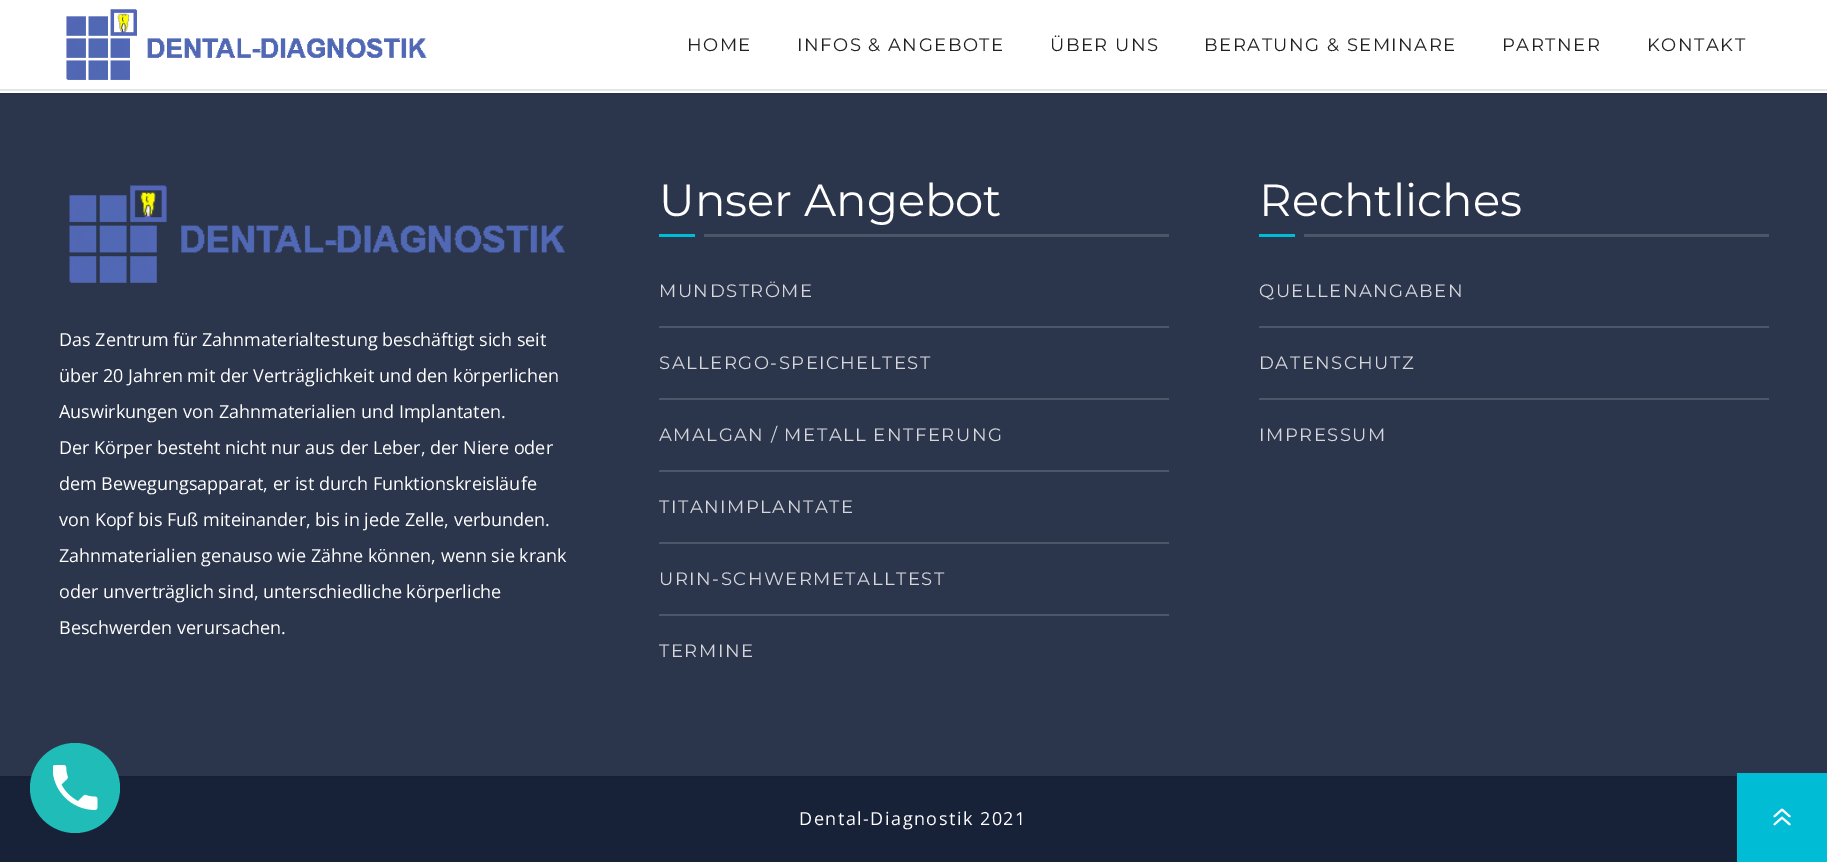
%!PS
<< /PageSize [1827 862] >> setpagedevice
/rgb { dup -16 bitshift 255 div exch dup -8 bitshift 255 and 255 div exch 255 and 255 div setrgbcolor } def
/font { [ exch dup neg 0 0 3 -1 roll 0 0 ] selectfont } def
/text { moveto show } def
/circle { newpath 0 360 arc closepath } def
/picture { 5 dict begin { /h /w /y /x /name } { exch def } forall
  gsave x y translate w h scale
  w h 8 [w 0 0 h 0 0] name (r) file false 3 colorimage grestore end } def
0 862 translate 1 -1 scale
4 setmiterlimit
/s1 { /OpenSans-Regular 18 font 16#FFFFFF rgb } def
/s2 { /Montserrat-Thin 45 font 16#FFFFFF rgb } def
16#FFFFFF rgb
0 0 1827 862 rectfill
16#E6E6E6 rgb
0 89 1827 2 rectfill
(pic1.raw) 66 9 361 71 picture
/Montserrat-Thin 18 font
16#212121 rgb
687 51 moveto 1.5 0 (HOME) ashow
797 51 moveto 1.5 0 (INFOS & ANGEBOTE) ashow
1050 51 moveto 1.5 0 (ÜBER UNS) ashow
1204 51 moveto 1.5 0 (BERATUNG & SEMINARE) ashow
1502 51 moveto 1.5 0 (PARTNER) ashow
1647 51 moveto 1.5 0 (KONTAKT) ashow
16#2B354B rgb
0 95 1827 681 rectfill
16#293247 rgb
0 93 1827 2 rectfill
(pic2.raw) 69 185 496 98 picture
s1
(Das Zentrum für Zahnmaterialtestung beschäftigt sich seit) 59 346 text
(über 20 Jahren mit der Verträglichkeit und den körperlichen) 59 382 text
(Auswirkungen von Zahnmaterialien und Implantaten.) 59 418 text
(Der Körper besteht nicht nur aus der Leber, der Niere oder) 59 454 text
(dem Bewegungsapparat, er ist durch Funktionskreisläufe) 59 490 text
(von Kopf bis Fuß miteinander, bis in jede Zelle, verbunden.) 59 526 text
(Zahnmaterialien genauso wie Zähne können, wenn sie krank) 59 562 text
(oder unverträglich sind, unterschiedliche körperliche) 59 598 text
(Beschwerden verursachen.) 59 634 text
s2
(Unser Angebot) 659 216 text
16#00BCD4 rgb
659 234 36 3 rectfill
16#4D5568 rgb
704 234 465 3 rectfill
659 326 510 2 rectfill
/Montserrat-Thin 18 font
16#D5D7DB rgb
659 297 moveto 1.5 0 (MUNDSTRÖME) ashow
16#4D5568 rgb
659 398 510 2 rectfill
16#D5D7DB rgb
659 369 moveto 1.5 0 (SALLERGO-SPEICHELTEST) ashow
16#4D5568 rgb
659 470 510 2 rectfill
16#D5D7DB rgb
659 441 moveto 1.5 0 (AMALGAN / METALL ENTFERUNG) ashow
16#4D5568 rgb
659 542 510 2 rectfill
16#D5D7DB rgb
659 513 moveto 1.5 0 (TITANIMPLANTATE) ashow
16#4D5568 rgb
659 614 510 2 rectfill
16#D5D7DB rgb
659 585 moveto 1.5 0 (URIN-SCHWERMETALLTEST) ashow
659 657 moveto 1.5 0 (TERMINE) ashow
s2
(Rechtliches) 1259 216 text
16#00BCD4 rgb
1259 234 36 3 rectfill
16#4D5568 rgb
1304 234 465 3 rectfill
1259 326 510 2 rectfill
/Montserrat-Thin 18 font
16#D5D7DB rgb
1259 297 moveto 1.5 0 (QUELLENANGABEN) ashow
16#4D5568 rgb
1259 398 510 2 rectfill
16#D5D7DB rgb
1259 369 moveto 1.5 0 (DATENSCHUTZ) ashow
1259 441 moveto 1.5 0 (IMPRESSUM) ashow
16#172137 rgb
0 778 1737 84 rectfill
16#161F34 rgb
0 776 1737 2 rectfill
/OpenSans-Regular 18 font
16#FFFFFF rgb
799 825 moveto 1.5 0 (Dental-Diagnostik 2021) ashow
16#20BDB8 rgb
75 788 45 circle fill
(pic3.raw) 53 765 45 45 picture
16#00BCD4 rgb
1737 773 90 89 rectfill
(pic4.raw) 1773 808 18 18 picture
showpage
